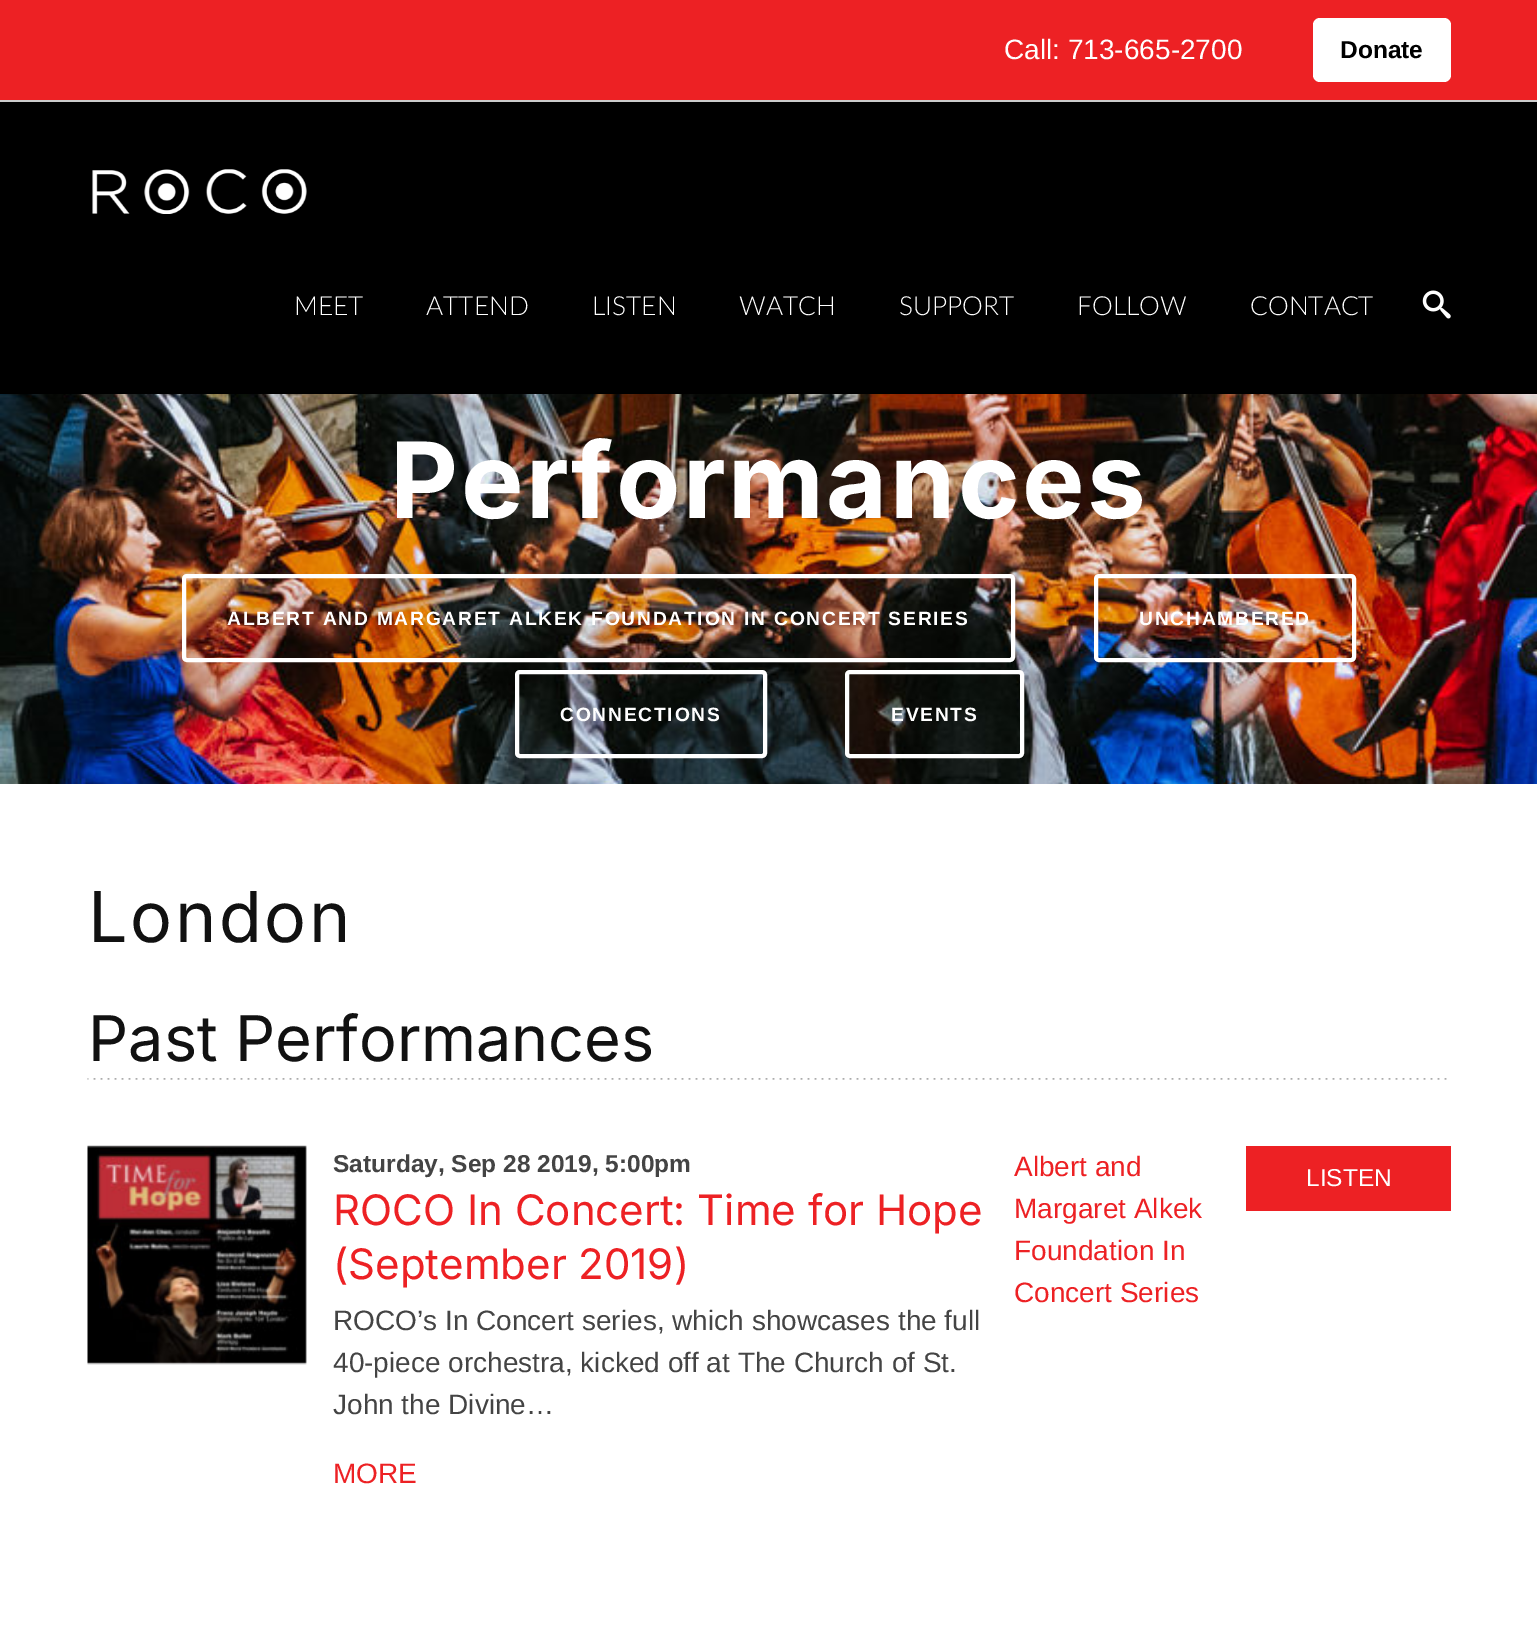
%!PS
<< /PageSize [1537 1634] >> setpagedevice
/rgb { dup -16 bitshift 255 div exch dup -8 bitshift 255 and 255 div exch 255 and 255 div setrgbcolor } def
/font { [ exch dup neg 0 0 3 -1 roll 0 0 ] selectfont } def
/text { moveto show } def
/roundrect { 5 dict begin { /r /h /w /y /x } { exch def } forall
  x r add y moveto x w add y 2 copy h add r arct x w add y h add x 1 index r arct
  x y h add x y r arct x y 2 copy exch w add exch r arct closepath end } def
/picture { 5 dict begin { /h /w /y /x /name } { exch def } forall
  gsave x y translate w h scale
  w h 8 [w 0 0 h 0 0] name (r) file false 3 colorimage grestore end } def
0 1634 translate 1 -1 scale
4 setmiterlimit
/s1 { /LiberationSans-Regular 28 font 16#FFFFFF rgb } def
/s2 { /LiberationSans-Bold 24.5 font 16#000000 rgb } def
/s3 { /Lato-Light 26.25 font 16#FFFFFF rgb } def
/s4 { /Inter-Regular 63 font 16#111111 rgb } def
/s5 { /LiberationSans-Bold 24.5 font 16#444444 rgb } def
/s6 { /Inter-Regular 42 font 16#ED2124 rgb } def
/s7 { /LiberationSans-Regular 28 font 16#444444 rgb } def
/s8 { /LiberationSans-Regular 28 font 16#ED2124 rgb } def
/s9 { /LiberationSans-Regular 24.5 font 16#FFFFFF rgb } def
16#FFFFFF rgb
0 0 1537 1634 rectfill
16#ED2124 rgb
0 0 1537 100 rectfill
16#CCCCCC rgb
0 100 1537 2 rectfill
s1
(Call: 713-665-2700) 1004 59 text
1313 18 138 64 7 roundrect fill
s2
(Donate) 1340 58 text
0 102 1537 292 rectfill
(pic1.raw) 92 169 215 45 picture
s3
(MEET) 294 315 text
(ATTEND) 426 315 text
(LISTEN) 592 315 text
(WATCH) 739 315 text
(SUPPORT) 899 315 text
(FOLLOW) 1077 315 text
(CONTACT) 1250 315 text
(pic2.raw) 1422 290 29 29 picture
(pic3.raw) 0 394 1537 390 picture
/Inter-Bold 105 font
390 518 moveto 2.6 0 (Performances) ashow
4 setlinewidth
184 576 829 84 3 roundrect stroke
/LiberationSans-Bold 19.25 font
227 625 moveto 1.75 0 (ALBERT AND MARGARET ALKEK FOUNDATION IN CONCERT SERIES) ashow
1096 576 258 84 3 roundrect stroke
1139 625 moveto 1.75 0 (UNCHAMBERED) ashow
517 672 248 84 3 roundrect stroke
560 721 moveto 1.75 0 (CONNECTIONS) ashow
847 672 175 84 3 roundrect stroke
891 721 moveto 1.75 0 (EVENTS) ashow
/Inter-Regular 70 font
16#111111 rgb
88 942 moveto 2.6 0 (London) ashow
(pic4.raw) 87 1078 1360 2 picture
s4
(Past Performances) 88 1061 text
(pic5.raw) 87 1145 220 220 picture
s5
(Saturday, Sep 28 2019, 5:00pm) 333 1172 text
s6
(ROCO In Concert: Time for Hope) 333 1225 text
(\(September 2019\)) 333 1279 text
s7
(ROCO’s In Concert series, which showcases the full) 333 1330 text
(40-piece orchestra, kicked off at The Church of St.) 333 1372 text
(John the Divine…) 333 1414 text
s8
(MORE) 333 1483 text
(Albert and) 1014 1176 text
(Margaret Alkek) 1014 1218 text
(Foundation In) 1014 1260 text
(Concert Series) 1014 1302 text
1246 1146 205 65 rectfill
s9
(LISTEN) 1306 1186 text
showpage
